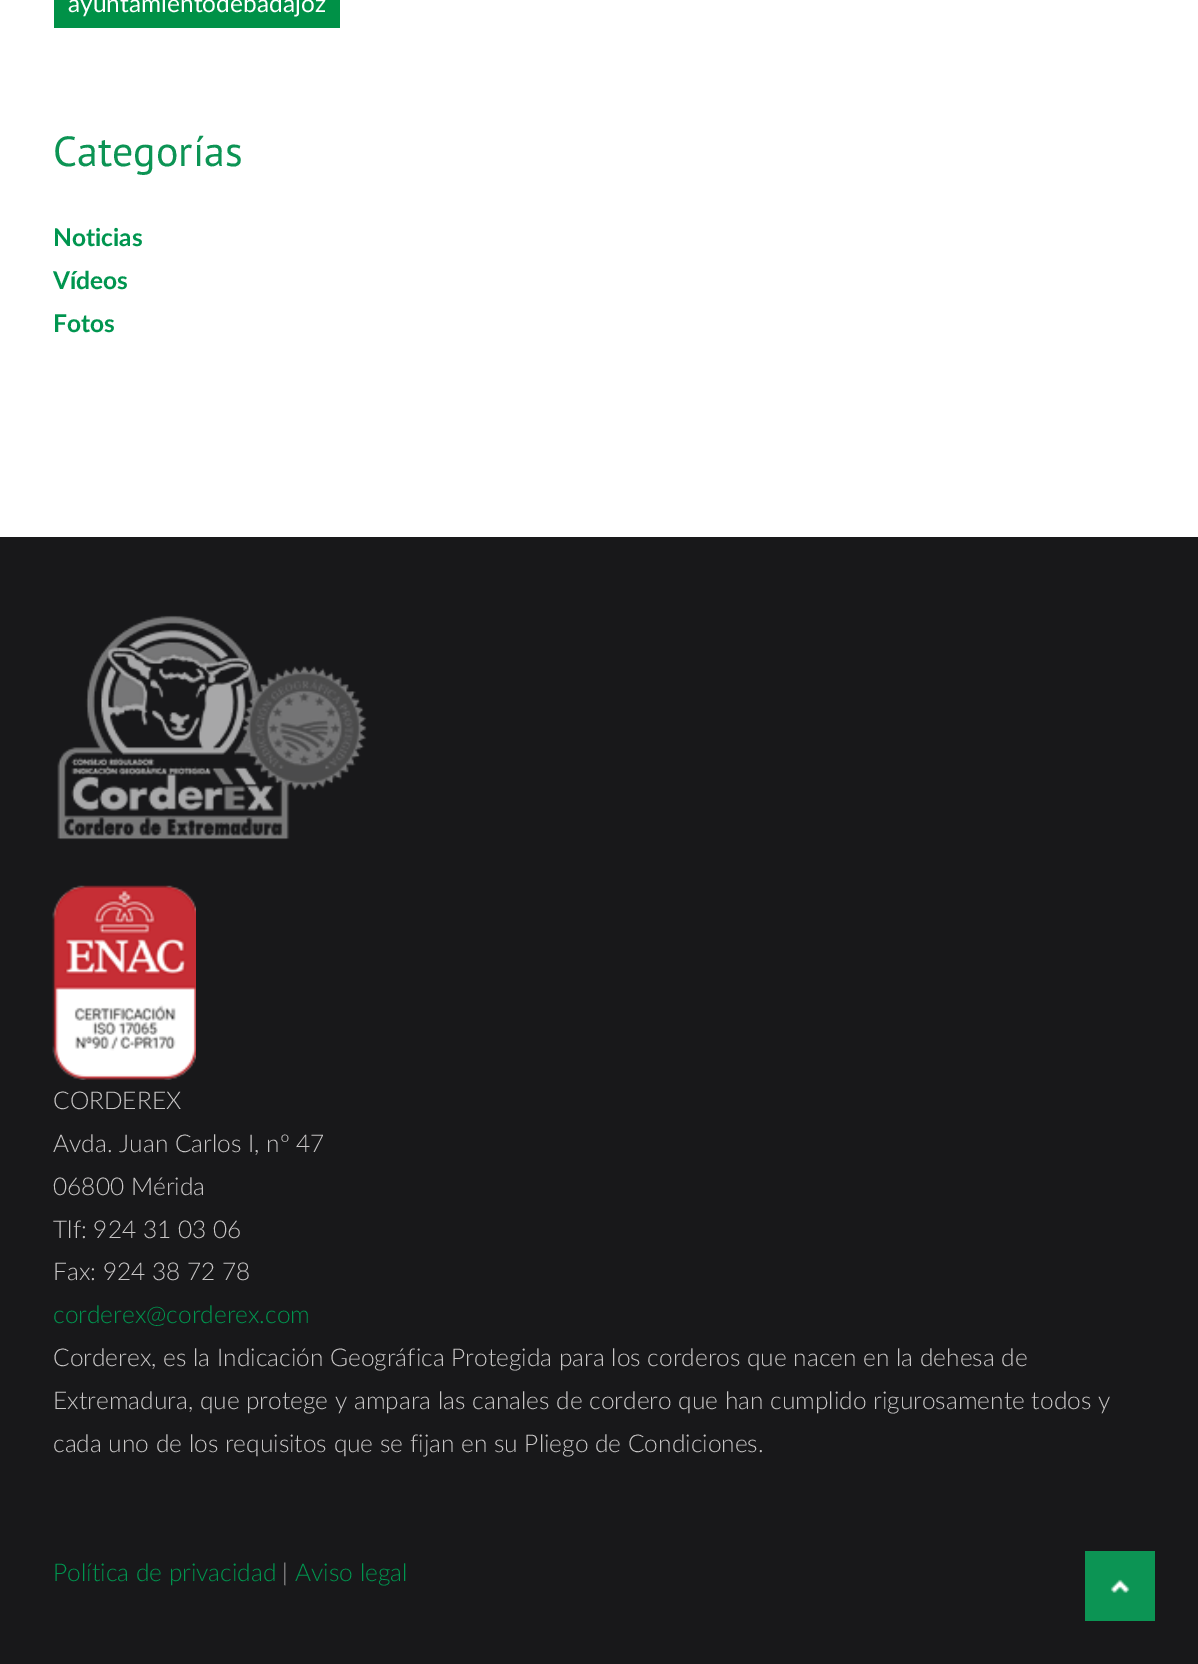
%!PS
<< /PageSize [1198 1664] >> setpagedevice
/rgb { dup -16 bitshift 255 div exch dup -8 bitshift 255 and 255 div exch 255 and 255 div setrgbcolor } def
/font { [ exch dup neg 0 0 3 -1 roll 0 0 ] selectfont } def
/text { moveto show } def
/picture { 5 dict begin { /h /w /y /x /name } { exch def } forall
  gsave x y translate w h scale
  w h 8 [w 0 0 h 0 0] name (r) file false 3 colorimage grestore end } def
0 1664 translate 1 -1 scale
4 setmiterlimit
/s1 { /Lato-Regular 24.5 font 16#FFFFFF rgb } def
/s2 { /PTSans-Regular 42 font 16#0C9454 rgb } def
/s3 { /Lato-Bold 24.5 font 16#00954F rgb } def
/s4 { /Lato-Light 24.5 font 16#C8C6C6 rgb } def
/s5 { /Lato-Light 24.5 font 16#00954F rgb } def
16#FFFFFF rgb
0 0 1198 1664 rectfill
16#009147 rgb
54 0 286 28 rectfill
s1
(ayuntamientodebadajoz) 68 12 text
s2
(Categorías) 53 166 text
s3
(Noticias) 53 246 text
(Vídeos) 53 289 text
(Fotos) 53 332 text
16#18181A rgb
0 537 1198 1127 rectfill
(pic1.raw) 57 615 310 225 picture
(pic2.raw) 52 885 144 195 picture
s4
(CORDEREX) 53 1109 text
(Avda. Juan Carlos I, nº 47) 53 1152 text
(06800 Mérida) 53 1195 text
(Tlf: 924 31 03 06) 53 1238 text
(Fax: 924 38 72 78) 53 1280 text
s5
(corderex@corderex.com) 53 1323 text
s4
(Corderex, es la Indicación Geográfica Protegida para los corderos que nacen en la dehesa de) 53 1366 text
(Extremadura, que protege y ampara las canales de cordero que han cumplido rigurosamente todos y) 53 1409 text
(cada uno de los requisitos que se fijan en su Pliego de Condiciones.) 53 1452 text
s5
(Política de privacidad) 53 1581 text
s4
(|) 282 1581 text
s5
(Aviso legal) 295 1581 text
16#0C9454 rgb
1085 1551 70 70 rectfill
(pic3.raw) 1110 1579 20 14 picture
showpage
